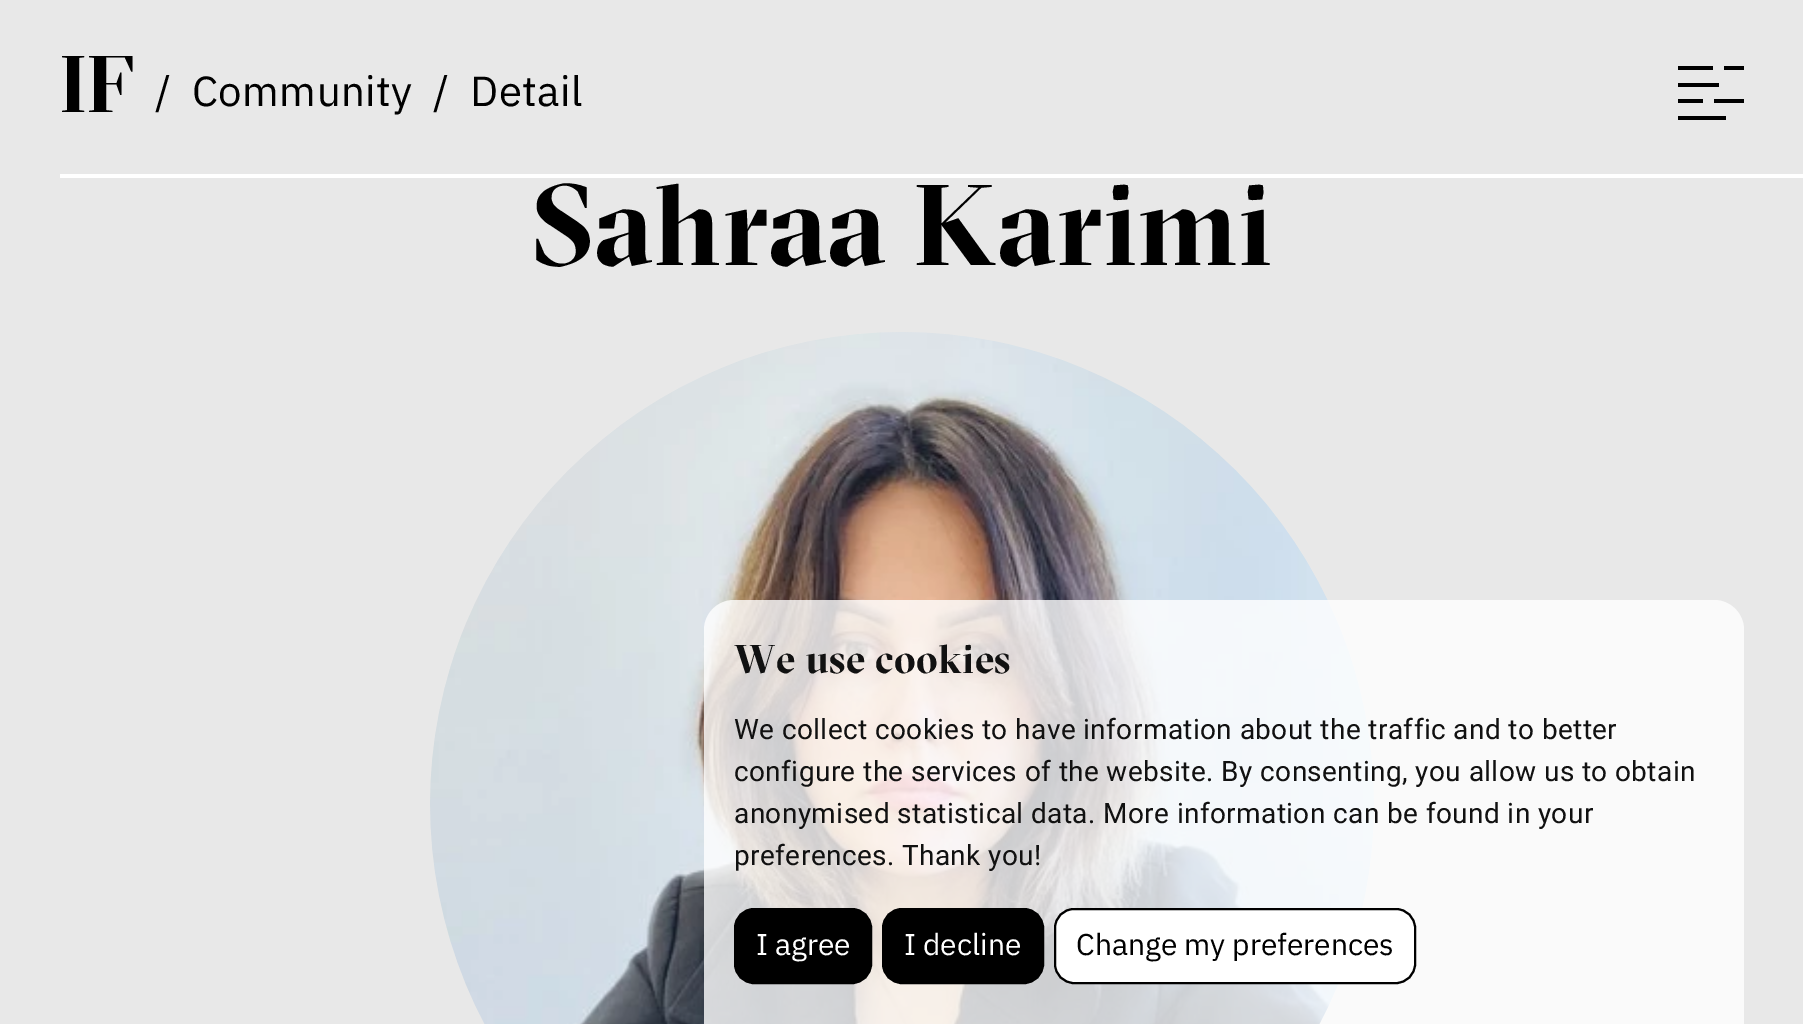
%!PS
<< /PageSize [1803 1024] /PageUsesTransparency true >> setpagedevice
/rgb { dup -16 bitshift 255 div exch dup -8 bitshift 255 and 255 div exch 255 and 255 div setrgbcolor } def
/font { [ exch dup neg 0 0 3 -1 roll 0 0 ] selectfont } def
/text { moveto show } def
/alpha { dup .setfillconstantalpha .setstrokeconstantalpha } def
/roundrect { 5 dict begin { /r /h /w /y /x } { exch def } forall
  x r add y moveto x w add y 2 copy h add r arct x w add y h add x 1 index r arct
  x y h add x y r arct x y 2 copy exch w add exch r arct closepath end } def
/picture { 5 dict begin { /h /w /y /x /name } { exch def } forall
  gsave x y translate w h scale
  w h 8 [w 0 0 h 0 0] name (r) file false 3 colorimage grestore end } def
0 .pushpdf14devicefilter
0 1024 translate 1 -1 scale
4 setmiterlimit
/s1 { /IBMPlexSans-Regular 30 font 16#FFFFFF rgb } def
/s2 { /IBMPlexSans-Regular 30 font 16#000000 rgb } def
16#E8E8E8 rgb
0 0 1803 1024 rectfill
/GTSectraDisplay-Bold 80 font
16#000000 rgb
60 112 moveto 0.4 0 (IF) ashow
/IBMPlexSans-Regular 42 font
155 106 moveto 0.4 0 (/) ashow
192 106 moveto 0.4 0 (Community) ashow
433 106 moveto 0.4 0 (/) ashow
470 106 moveto 0.4 0 (Detail) ashow
1678 99 moveto 1703 99 lineto 1703 103 lineto 1678 103 lineto closepath 1714 99 moveto 1744 99 lineto 1744 103 lineto 1714 103 lineto closepath 1678 66 moveto 1713 66 lineto 1713 70 lineto 1678 70 lineto closepath 1678 83 moveto 1719 83 lineto 1719 87 lineto 1678 87 lineto closepath 1724 66 moveto 1744 66 lineto 1744 70 lineto 1724 70 lineto closepath 1678 116 moveto 1726 116 lineto 1726 120 lineto 1678 120 lineto closepath fill
16#FFFFFF rgb
60 174 1743 4 rectfill
/GTSectraDisplay-Bold 114.25 font
16#000000 rgb
532 265 moveto 0.4 0 (Sahraa Karimi) ashow
(pic1.raw) 430 332 944 692 picture
0.8 alpha
16#FFFFFF rgb
734 600 moveto 1714 600 lineto 1730.5 600 1744 613.5 1744 630 curveto 1744 1024 lineto 704 1024 lineto 704 630 lineto 704 613.5 717.5 600 734 600 curveto closepath fill
/GTSectraDisplay-Bold 40 font
1 alpha
16#111111 rgb
734 673 moveto 0.4 0 (We use cookies) ashow
/Roboto-Regular 28 font
734 739 moveto 0.4 0 (We collect cookies to have information about the traffic and to better) ashow
734 781 moveto 0.4 0 (configure the services of the website. By consenting, you allow us to obtain) ashow
734 823 moveto 0.4 0 (anonymised statistical data. More information can be found in your) ashow
734 865 moveto 0.4 0 (preferences. Thank you!) ashow
16#000000 rgb
735 909 136 74 19 roundrect gsave fill grestore
2 setlinewidth
stroke
s1
(I agree) 756 955 text
16#000000 rgb
883 909 160 74 19 roundrect gsave fill grestore
stroke
s1
(I decline) 904 955 text
1055 909 360 74 19 roundrect gsave fill grestore
16#000000 rgb
stroke
(Change my preferences) 1076 955 text
.poppdf14devicefilter showpage
